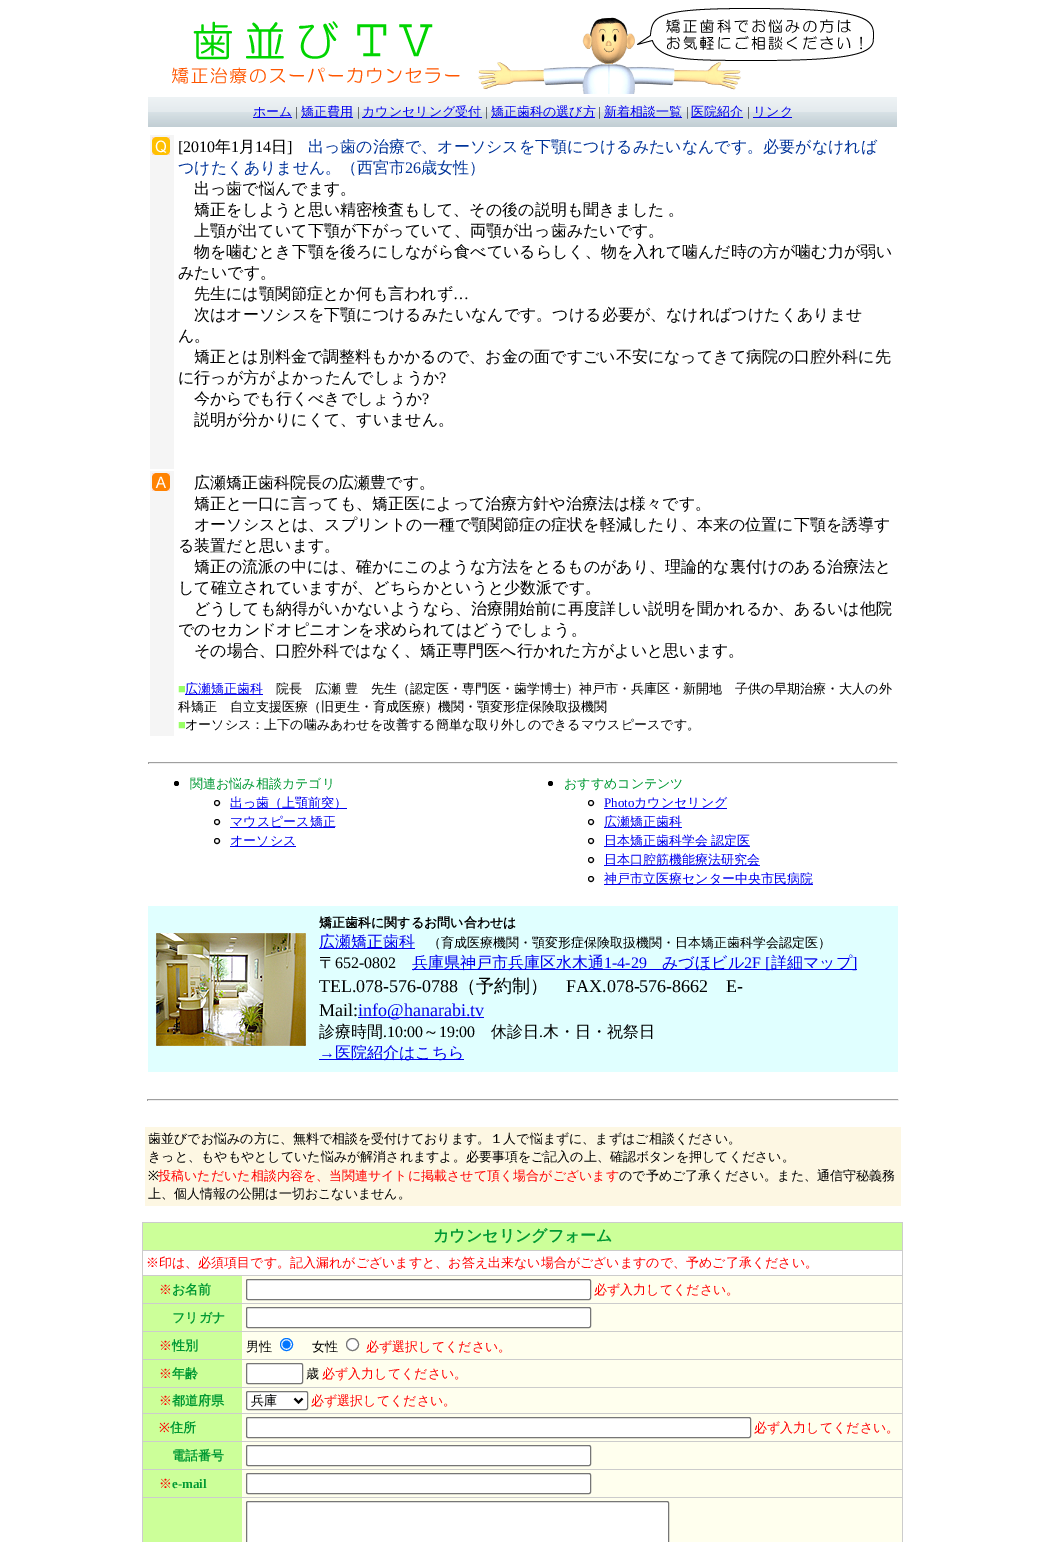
%!PS
<< /PageSize [1045 1542] >> setpagedevice
/rgb { dup -16 bitshift 255 div exch dup -8 bitshift 255 and 255 div exch 255 and 255 div setrgbcolor } def
/font { [ exch dup neg 0 0 3 -1 roll 0 0 ] selectfont } def
/text { moveto show } def
/circle { newpath 0 360 arc closepath } def
/roundrect { 5 dict begin { /r /h /w /y /x } { exch def } forall
  x r add y moveto x w add y 2 copy h add r arct x w add y h add x 1 index r arct
  x y h add x y r arct x y 2 copy exch w add exch r arct closepath end } def
/picture { 5 dict begin { /h /w /y /x /name } { exch def } forall
  gsave x y translate w h scale
  w h 8 [w 0 0 h 0 0] name (r) file false 3 colorimage grestore end } def
0 1542 translate 1 -1 scale
4 setmiterlimit
/s1 { /WenQuanYiZenHei-Medium 13 font 16#0000EE rgb } def
/s2 { /LiberationSerif-Regular 13 font 16#000000 rgb } def
/s3 { /LiberationSerif-Regular 16 font 16#000000 rgb } def
/s4 { /WenQuanYiZenHei-Medium 16 font 16#000000 rgb } def
/s5 { /WenQuanYiZenHei-Medium 16 font 16#003399 rgb } def
/s6 { /LiberationSerif-Regular 16 font 16#003399 rgb } def
/s7 { /LiberationSerif-Regular 13 font 16#99FF66 rgb } def
/s8 { /WenQuanYiZenHei-Medium 13 font 16#000000 rgb } def
/s9 { /WenQuanYiZenHei-Medium 13 font 16#009933 rgb } def
/s10 { /LiberationSerif-Regular 13 font 16#0000EE rgb } def
/s11 { /WenQuanYiZenHei-Bold 13 font 16#000000 rgb } def
/s12 { /WenQuanYiZenHei-Medium 16 font 16#0000EE rgb } def
/s13 { /LiberationSerif-Regular 16 font 16#0000EE rgb } def
/s14 { /LiberationSerif-Regular 18 font 16#000000 rgb } def
/s15 { /WenQuanYiZenHei-Medium 18 font 16#000000 rgb } def
/s16 { /LiberationSerif-Regular 18 font 16#0000EE rgb } def
/s17 { /NotoSans-Regular 13 font 16#000000 rgb } def
/s18 { /WenQuanYiZenHei-Medium 13 font 16#FF0000 rgb } def
/s19 { /WenQuanYiZenHei-Bold 16 font 16#009933 rgb } def
/s20 { /WenQuanYiZenHei-Bold 13 font 16#009933 rgb } def
/s21 { /NotoSans-Regular 13 font 16#FF0000 rgb } def
/s22 { /LiberationSerif-Bold 13 font 16#009933 rgb } def
16#FFFFFF rgb
0 0 1045 1542 rectfill
(pic1.raw) 172 8 702 86 picture
(pic2.raw) 148 97 749 30 picture
16#0000EE rgb
253 117 39 1 rectfill
s1
(ホーム) 253 116 text
s2
(|) 295 116 text
16#0000EE rgb
301 117 52 1 rectfill
s1
(矯正費用) 301 116 text
s2
(|) 357 116 text
16#0000EE rgb
362 117 120 1 rectfill
s1
(カウンセリング受付) 362 116 text
s2
(|) 485 116 text
16#0000EE rgb
491 117 104 1 rectfill
s1
(矯正歯科の選び方) 491 116 text
s2
(|) 598 116 text
16#0000EE rgb
604 117 78 1 rectfill
s1
(新着相談一覧) 604 116 text
s2
(|) 686 116 text
16#0000EE rgb
691 117 52 1 rectfill
s1
(医院紹介) 691 116 text
s2
(|) 747 116 text
16#0000EE rgb
753 117 39 1 rectfill
s1
(リンク) 753 116 text
16#F5F5F5 rgb
150 135 24 334 rectfill
(pic3.raw) 152 137 18 18 picture
s3
([2010) 178 152 text
s4
(年) 215 152 text
s3
(1) 231 152 text
s4
(月) 239 152 text
s3
(14) 255 152 text
s4
(日) 271 152 text
s3
(]) 287 152 text
s5
(出っ歯の治療で、オーソシスを下顎につけるみたいなんです。必要がなければ) 308 152 text
(つけたくありません。（西宮市) 178 173 text
s6
(26) 405 173 text
s5
(歳女性）) 421 173 text
s4
(出っ歯で悩んでます。) 194 194 text
194 215 moveto -1 0 32 (矯正をしようと思い精密検査もして、その後の説明も聞きました 。) widthshow
(上顎が出ていて下顎が下がっていて、両顎が出っ歯みたいです。) 194 236 text
(物を噛むとき下顎を後ろにしながら食べているらしく、物を入れて噛んだ時の方が噛む力が弱い) 194 257 text
(みたいです。) 178 278 text
(先生には顎関節症とか何も言われず) 194 299 text
s3
(…) 453 299 text
s4
(次はオーソシスを下顎につけるみたいなんです。つける必要が、なければつけたくありませ) 194 320 text
(ん。) 178 341 text
(矯正とは別料金で調整料もかかるので、お金の面ですごい不安になってきて病院の口腔外科に先) 194 362 text
(に行っが方がよかったんでしょうか) 178 383 text
s3
(?) 439 383 text
s4
(今からでも行くべきでしょうか) 194 404 text
s3
(?) 422 404 text
s4
(説明が分かりにくて、すいません。) 194 425 text
16#F5F5F5 rgb
150 471 24 265 rectfill
(pic4.raw) 152 473 18 18 picture
s4
(広瀬矯正歯科院長の広瀬豊です。) 194 488 text
(矯正と一口に言っても、矯正医によって治療方針や治療法は様々です。) 194 509 text
(オーソシスとは、スプリントの一種で顎関節症の症状を軽減したり、本来の位置に下顎を誘導す) 194 530 text
(る装置だと思います。) 178 551 text
(矯正の流派の中には、確かにこのような方法をとるものがあり、理論的な裏付けのある治療法と) 194 572 text
(して確立されていますが、どちらかというと少数派です。) 178 593 text
(どうしても納得がいかないようなら、治療開始前に再度詳しい説明を聞かれるか、あるいは他院) 194 614 text
(でのセカンドオピニオンを求められてはどうでしょう。) 178 635 text
(その場合、口腔外科ではなく、矯正専門医へ行かれた方がよいと思います。) 194 656 text
s7
(■) 178 693 text
16#0000EE rgb
185 694 78 1 rectfill
s1
(広瀬矯正歯科) 185 693 text
s8
(院長　広瀬) 276 693 text
(豊　先生（認定医・専門医・歯学博士）神戸市・兵庫区・新開地　子供の早期治療・大人の外) 345 693 text
(科矯正　自立支援医療（旧更生・育成医療）機関・顎変形症保険取扱機関) 178 711 text
s7
(■) 178 729 text
s8
(オーソシス：上下の噛みあわせを改善する簡単な取り外しのできるマウスピースです。) 185 729 text
16#9F9F9F rgb
148 762 750 1 rectfill
16#EEEEEE rgb
897 762 1 2 rectfill
148 763 750 1 rectfill
16#9F9F9F rgb
148 762 1 2 rectfill
16#000000 rgb
176.5 783.5 2.5 circle fill
s9
(関連お悩み相談カテゴリ) 190 788 text
16#000000 rgb
217 803 2.5 circle stroke
16#0000EE rgb
230 808 117 1 rectfill
(出っ歯（上顎前突）) 230 807 text
16#000000 rgb
217 822 2.5 circle stroke
16#0000EE rgb
230 827 105 1 rectfill
(マウスピース矯正) 230 826 text
16#000000 rgb
217 841 2.5 circle stroke
16#0000EE rgb
230 846 66 1 rectfill
(オーソシス) 230 845 text
16#000000 rgb
550.5 783.5 2.5 circle fill
s9
(おすすめコンテンツ) 564 788 text
16#000000 rgb
591 803 2.5 circle stroke
s10
(Photo) 604 807 text
604 808 123 1 rectfill
s1
(カウンセリング) 634 807 text
16#000000 rgb
591 822 2.5 circle stroke
16#0000EE rgb
604 827 78 1 rectfill
(広瀬矯正歯科) 604 826 text
16#000000 rgb
591 841 2.5 circle stroke
16#0000EE rgb
604 846 146 1 rectfill
(日本矯正歯科学会) 604 845 text
(認定医) 711 845 text
16#000000 rgb
591 860 2.5 circle stroke
16#0000EE rgb
604 865 156 1 rectfill
(日本口腔筋機能療法研究会) 604 864 text
16#000000 rgb
591 879 2.5 circle stroke
16#0000EE rgb
604 884 209 1 rectfill
(神戸市立医療センター中央市民病院) 604 883 text
16#E0FFFF rgb
148 906 750 166 rectfill
(pic5.raw) 156 933 150 113 picture
s11
(矯正歯科に関するお問い合わせは) 319 927 text
16#0000EE rgb
319 948 96 1 rectfill
s12
(広瀬矯正歯科) 319 947 text
s8
(（育成医療機関・顎変形症保険取扱機関・日本矯正歯科学会認定医）) 428 947 text
s4
(〒) 319 968 text
s3
(652-0802) 335 968 text
16#0000EE rgb
412 969 445 1 rectfill
s12
(兵庫県神戸市兵庫区水木通) 412 968 text
s13
(1-4-29) 604 968 text
s12
(みづほビル) 662 968 text
s13
(2F [) 744 968 text
s12
(詳細マップ) 771 968 text
s13
(]) 852 968 text
s14
(TEL.078-576-0788) 319 992 text
s15
(（予約制）) 458 992 text
s14
(FAX.078-576-8662) 566 992 text
(E-) 726 992 text
(Mail:) 319 1016 text
16#0000EE rgb
358 1017 126 1 rectfill
(info@hanarabi.tv) 358 1016 text
s4
(診療時間) 319 1037 text
s3
(.10:00) 383 1037 text
s4
(～) 423 1037 text
s3
(19:00) 439 1037 text
s4
(休診日) 491 1037 text
(木・日・祝祭日) 543 1037 text
s3
(.) 539 1037 text
s13
(→) 319 1058 text
319 1059 145 1 rectfill
s12
(医院紹介はこちら) 335 1058 text
16#9F9F9F rgb
147 1099 752 1 rectfill
16#EEEEEE rgb
898 1099 1 2 rectfill
147 1100 752 1 rectfill
16#9F9F9F rgb
147 1099 1 2 rectfill
16#FDF7E3 rgb
145 1127 756 79 rectfill
s8
(歯並びでお悩みの方に、無料で相談を受付けております。１人で悩まずに、まずはご相談ください。) 148 1143 text
(きっと、もやもやとしていた悩みが解消されますよ。必要事項をご記入の上、確認ボタンを押してください。) 148 1161 text
s17
(※) 148 1180 text
s18
(投稿いただいた相談内容を、当関連サイトに掲載させて頂く場合がございます) 158 1180 text
s8
(ので予めご了承ください。また、通信守秘義務) 619 1180 text
(上、個人情報の公開は一切おこないません。) 148 1198 text
16#CCCCCC rgb
142 1222 761 320 rectfill
16#CCFF99 rgb
143 1223 759 27 rectfill
s19
(カウンセリングフォーム) 433 1241 text
16#FFFFFF rgb
143 1251 759 24 rectfill
s18
(※印は、必須項目です。記入漏れがございますと、お答え出来ない場合がございますので、予めご了承ください。) 146 1267 text
16#FFFFEE rgb
242 1276 660 27 rectfill
16#CCFF99 rgb
143 1276 99 27 rectfill
s18
(※) 159 1294 text
s20
(お名前) 172 1294 text
16#FFFFFF rgb
246.5 1279.5 344 20 1.5 roundrect gsave fill grestore
16#767676 rgb
stroke
s18
(必ず入力してください。) 594 1294 text
16#FFFFEE rgb
242 1304 660 27 rectfill
16#CCFF99 rgb
143 1304 99 27 rectfill
s20
(フリガナ) 172 1322 text
16#FFFFFF rgb
246.5 1307.5 344 20 1.5 roundrect gsave fill grestore
16#767676 rgb
stroke
16#FFFFEE rgb
242 1332 660 27 rectfill
16#CCFF99 rgb
143 1332 99 27 rectfill
s18
(※) 159 1350 text
s20
(性別) 172 1350 text
s8
(男性) 246 1351 text
16#FFFFFF rgb
286.5 1344.5 6 circle gsave fill grestore
16#0075FF rgb
stroke
286.5 1344.5 4 circle fill
s8
(女性) 312 1351 text
16#FFFFFF rgb
352.5 1344.5 6 circle gsave fill grestore
16#767676 rgb
stroke
s18
(必ず選択してください。) 366 1351 text
16#FFFFEE rgb
242 1360 660 27 rectfill
16#CCFF99 rgb
143 1360 99 27 rectfill
s18
(※) 159 1378 text
s20
(年齢) 172 1378 text
16#FFFFFF rgb
246.5 1363.5 56 20 1.5 roundrect gsave fill grestore
16#767676 rgb
stroke
s8
(歳) 306 1378 text
s18
(必ず入力してください。) 322 1378 text
16#FFFFEE rgb
242 1388 660 25 rectfill
16#CCFF99 rgb
143 1388 99 25 rectfill
s18
(※) 159 1405 text
s20
(都道府県) 172 1405 text
16#FFFFFF rgb
246.5 1391.5 61 18 1.5 roundrect gsave fill grestore
16#767676 rgb
stroke
16#000000 rgb
2 setlinewidth
294.5 1398.5 moveto 298.5 1402.5 lineto 302.5 1398.5 lineto stroke
s8
(兵庫) 251 1405 text
s18
(必ず選択してください。) 311 1405 text
16#FFFFEE rgb
242 1414 660 27 rectfill
16#CCFF99 rgb
143 1414 99 27 rectfill
s21
(※) 159 1432 text
s20
(住所) 170 1432 text
16#FFFFFF rgb
246.5 1417.5 504 20 1.5 roundrect gsave fill grestore
16#767676 rgb
1 setlinewidth
stroke
s18
(必ず入力してください。) 754 1432 text
16#FFFFEE rgb
242 1442 660 27 rectfill
16#CCFF99 rgb
143 1442 99 27 rectfill
s20
(電話番号) 172 1460 text
16#FFFFFF rgb
246.5 1445.5 344 20 1.5 roundrect gsave fill grestore
16#767676 rgb
stroke
16#FFFFEE rgb
242 1470 660 27 rectfill
16#CCFF99 rgb
143 1470 99 27 rectfill
s18
(※) 159 1488 text
s22
(e-mail) 172 1488 text
16#FFFFFF rgb
246.5 1473.5 344 20 1.5 roundrect gsave fill grestore
16#767676 rgb
stroke
16#FFFFEE rgb
242 1498 660 44 rectfill
16#CCFF99 rgb
143 1498 99 44 rectfill
16#FFFFFF rgb
246.5 1501.5 422 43 1.5 roundrect gsave fill grestore
16#767676 rgb
stroke
showpage
